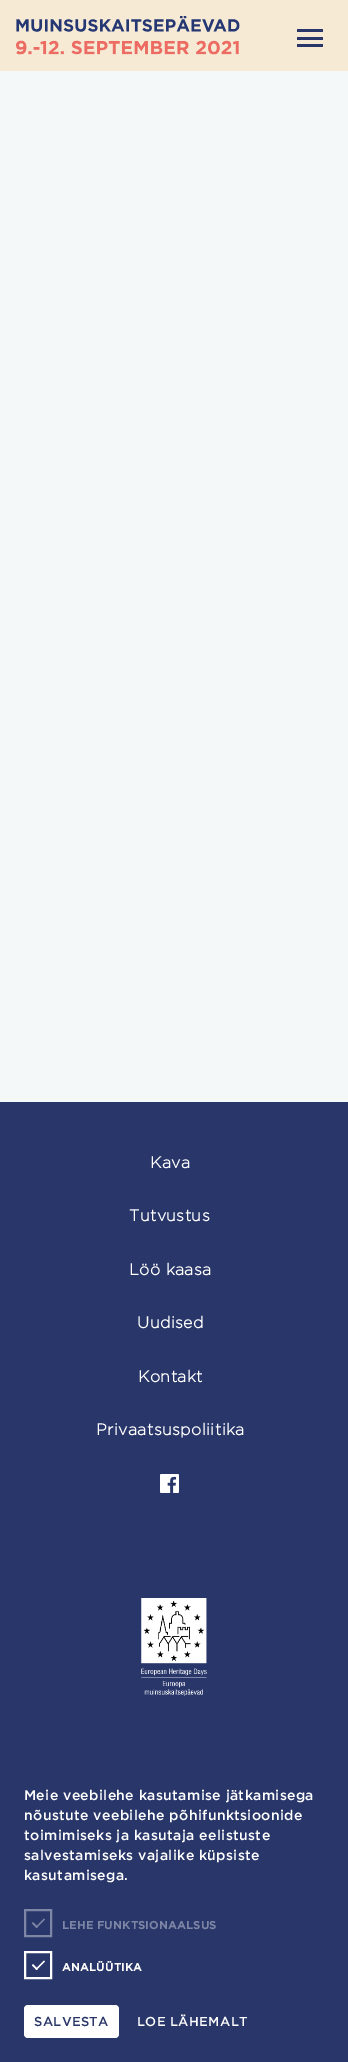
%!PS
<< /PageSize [348 2062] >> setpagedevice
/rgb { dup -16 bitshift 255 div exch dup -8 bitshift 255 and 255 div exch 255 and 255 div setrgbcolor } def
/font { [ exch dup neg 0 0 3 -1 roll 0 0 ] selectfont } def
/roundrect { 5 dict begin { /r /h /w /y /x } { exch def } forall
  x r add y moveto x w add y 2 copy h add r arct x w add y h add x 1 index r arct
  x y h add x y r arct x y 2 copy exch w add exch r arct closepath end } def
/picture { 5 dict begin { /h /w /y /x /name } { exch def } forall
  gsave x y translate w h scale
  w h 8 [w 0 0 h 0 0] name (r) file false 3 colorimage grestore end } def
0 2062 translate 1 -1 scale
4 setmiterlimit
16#F5F8F9 rgb
0 0 348 2062 rectfill
16#F6EAD5 rgb
0 0 348 71 rectfill
(pic1.raw) 16 16 224 39 picture
16#283669 rgb
297 29 26 3 rectfill
297 37 26 3 rectfill
297 44 26 3 rectfill
0 1102 348 960 rectfill
/Gotham-Bold 16 font
16#FFFFFF rgb
150 1168 moveto 0.35 0 (Kava) ashow
129 1221 moveto 0.35 0 (Tutvustus) ashow
129 1275 moveto 0.35 0 (Löö kaasa) ashow
137 1328 moveto 0.35 0 (Uudised) ashow
138 1382 moveto 0.35 0 (Kontakt) ashow
96 1435 moveto 0.35 0 (Privaatsuspoliitika) ashow
(pic2.raw) 160 1474 19 19 picture
(pic3.raw) 141 1598 66 98 picture
/Gotham-Medium 14 font
24 1800 moveto 0.35 0 (Meie veebilehe kasutamise jätkamisega) ashow
24 1820 moveto 0.35 0 (nõustute veebilehe põhifunktsioonide) ashow
24 1840 moveto 0.35 0 (toimimiseks ja kasutaja eelistuste) ashow
24 1860 moveto 0.35 0 (salvestamiseks vajalike küpsiste) ashow
24 1880 moveto 0.35 0 (kasutamisega.) ashow
16#7E86A5 rgb
2 setlinewidth
25 1910 26 26 rectstroke
44 1918.5 moveto 45 1919.5 lineto 36.5 1928 lineto 35.5 1927 lineto closepath fill
33 1922 moveto 38 1927 lineto 36.5 1928 lineto 32 1923.5 lineto closepath fill
/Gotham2-Bold 11 font
62 1929 moveto 0.35 0 (LEHE FUNKTSIONAALSUS) ashow
16#FFFFFF rgb
25 1952 26 26 rectstroke
44 1960.5 moveto 45 1961.5 lineto 36.5 1970 lineto 35.5 1969 lineto closepath fill
33 1964 moveto 38 1969 lineto 36.5 1970 lineto 32 1965.5 lineto closepath fill
62 1971 moveto 0.35 0 (ANALÜÜTIKA) ashow
24 2005 95 33 4 roundrect fill
/Gotham-Medium 13 font
16#283669 rgb
34 2026 moveto 0.35 0 (SALVESTA) ashow
16#FFFFFF rgb
137 2026 moveto 0.35 0 (LOE LÄHEMALT) ashow
showpage
